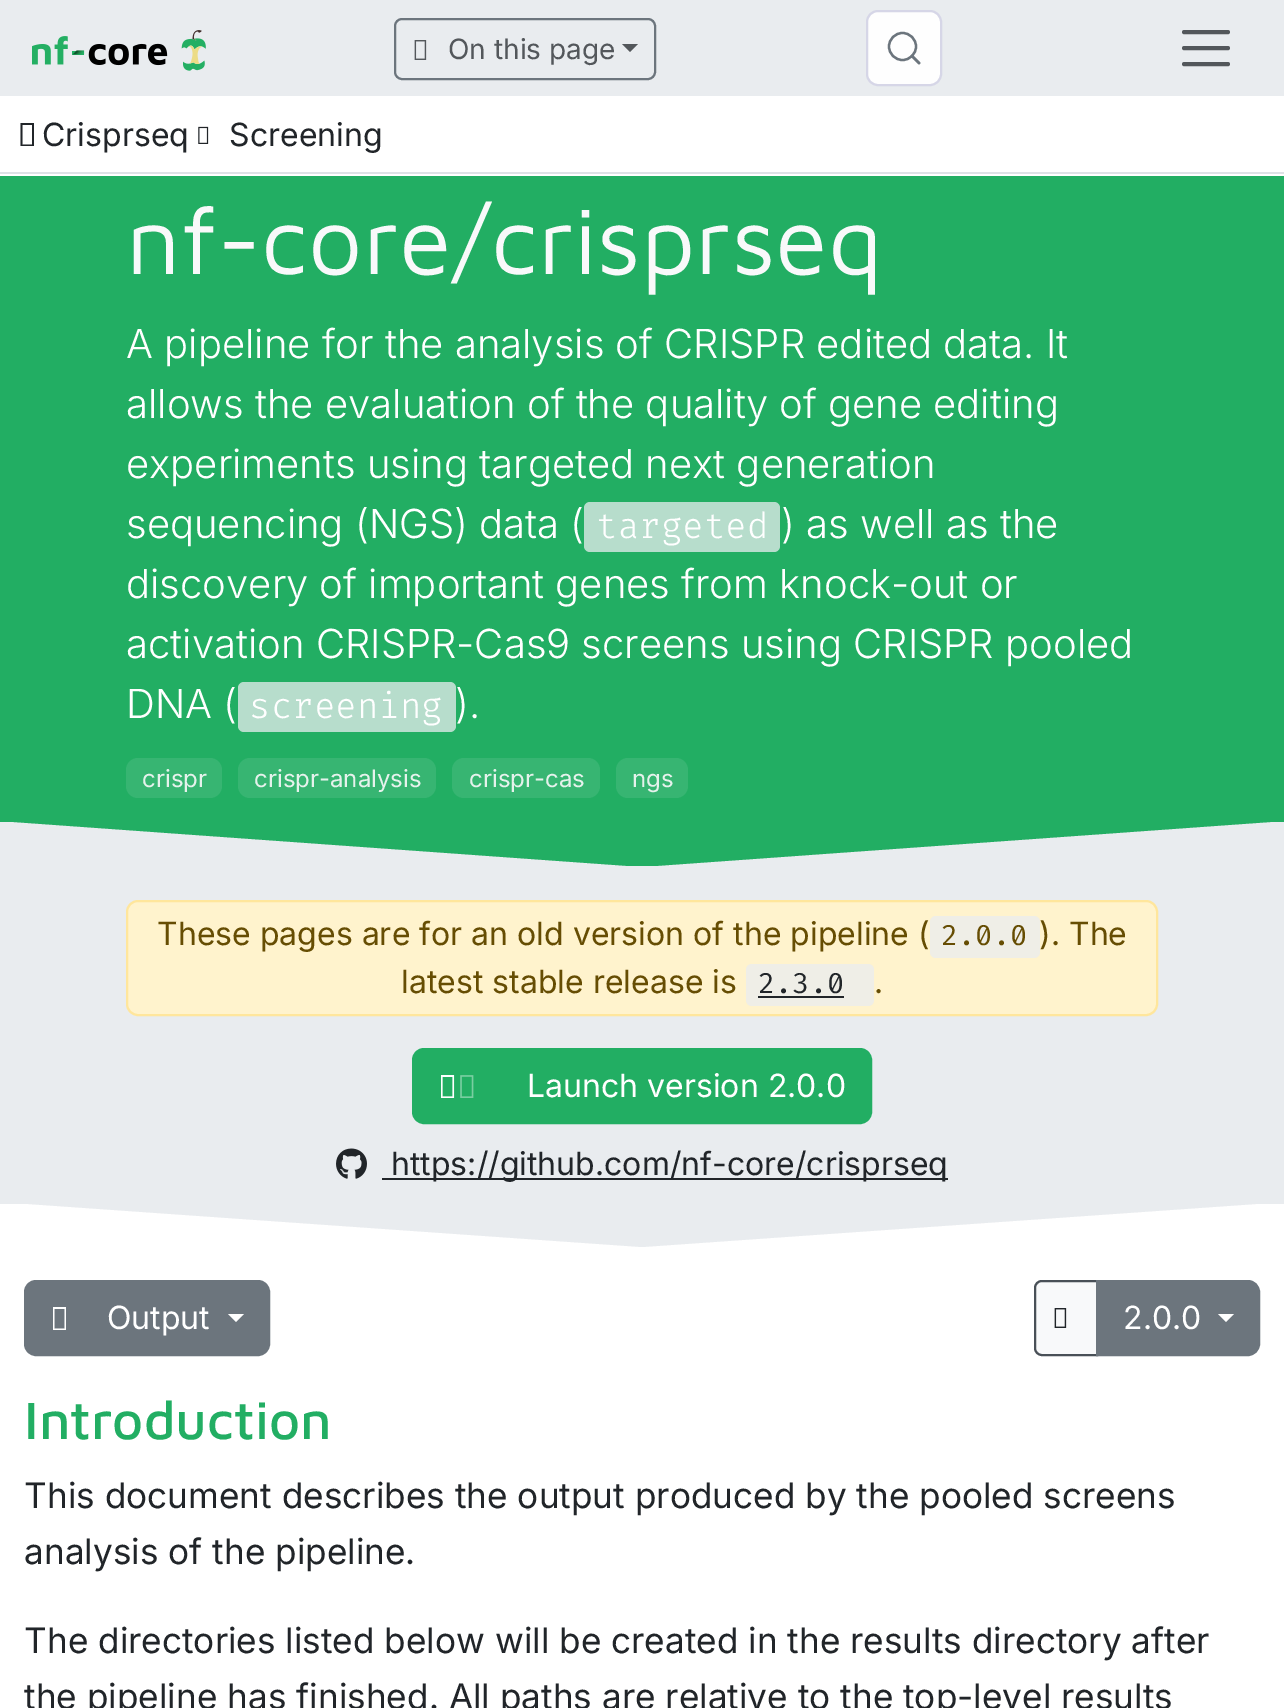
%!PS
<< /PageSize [1284 1708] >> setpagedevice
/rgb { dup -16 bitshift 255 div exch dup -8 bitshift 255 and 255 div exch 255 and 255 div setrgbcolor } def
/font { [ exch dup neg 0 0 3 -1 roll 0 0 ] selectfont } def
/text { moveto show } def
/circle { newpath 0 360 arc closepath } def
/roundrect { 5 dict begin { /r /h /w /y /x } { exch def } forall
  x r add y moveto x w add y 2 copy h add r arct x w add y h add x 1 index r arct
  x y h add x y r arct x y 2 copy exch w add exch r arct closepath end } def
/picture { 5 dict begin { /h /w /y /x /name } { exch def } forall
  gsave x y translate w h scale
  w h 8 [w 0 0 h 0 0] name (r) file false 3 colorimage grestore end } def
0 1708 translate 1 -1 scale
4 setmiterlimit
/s1 { /Inter-Regular 28 font 16#53575B rgb } def
/s2 { /Inter-Regular 32 font 16#212529 rgb } def
/s3 { /MavenPro-Regular 96 font 16#F8F9FA rgb } def
/s4 { /Inter-Light 40 font 16#FFFFFF rgb } def
/s5 { /FiraCode-Light 35 font 16#FFFFFF rgb } def
/s6 { /Inter-Regular 24 font 16#E5F2EC rgb } def
/s7 { /Inter-Regular 32 font 16#664D03 rgb } def
/s8 { /FiraCode-Regular 28 font 16#664D03 rgb } def
/s9 { /FiraCode-Regular 28 font 16#212529 rgb } def
/s10 { /Inter-Regular 32 font 16#FFFFFF rgb } def
/s11 { /MavenPro-Medium 54 font 16#22AE63 rgb } def
/s12 { /Inter-Regular 35.2 font 16#212529 rgb } def
16#FFFFFF rgb
0 0 1284 1708 rectfill
16#E9ECEF rgb
0 0 1284 96 rectfill
(pic1.raw) 32 30 174 41 picture
16#6C757D rgb
2 setlinewidth
395 19 260 60 7 roundrect stroke
(pic2.raw) 414 40 13 20 picture
s1
(On this page) 448 59 text
622 44 moveto 638 44 lineto 630 52 lineto closepath fill
16#FEFEFE rgb
867 11 74 74 11 roundrect gsave fill grestore
16#D6D6E7 rgb
stroke
16#6C757D rgb
2.3 setlinewidth
902.5 46.5 13.5 circle stroke
2.7 setlinewidth
1 setlinecap
1 setlinejoin
919 63 moveto 912 56 lineto stroke
16#53575B rgb
4 setlinewidth
0 setlinejoin
1184 32 moveto 1228 32 lineto 1184 48 moveto 1228 48 lineto 1184 64 moveto 1228 64 lineto stroke
16#DEE2E6 rgb
0 172 1284 2 rectfill
16#212529 rgb
20.5 146 moveto 20.5 123 lineto 34 123 lineto 34 146 lineto closepath 22.5 144.5 moveto 32 144.5 lineto 32 125 lineto 22.5 125 lineto closepath fill
s2
(Crisprseq) 42 146 text
(pic3.raw) 198 126 11 18 picture
(Screening) 229 146 text
16#E9ECEF rgb
0 822 1284 382 rectfill
16#22AE63 rgb
1284 819 moveto 0 819 lineto 0 821 lineto 629 866 lineto 655 866 lineto 1284 821 lineto closepath fill
0 176 1284 646 rectfill
s3
(nf-core/crisprseq) 126 274 text
s4
(A pipeline for the analysis of CRISPR edited data. It) 126 358 text
(allows the evaluation of the quality of gene editing) 126 418 text
(experiments using targeted next generation) 126 478 text
(sequencing \(NGS\) data \() 126 538 text
16#B7DDCC rgb
584 502 196 50 6 roundrect fill
s5
(targeted) 596 538 text
s4
(\) as well as the) 781 538 text
(discovery of important genes from knock-out or) 126 598 text
(activation CRISPR-Cas9 screens using CRISPR pooled) 126 658 text
(DNA \() 126 718 text
16#B7DDCC rgb
238 682 218 50 6 roundrect fill
s5
(screening) 249 718 text
s4
(\).) 455 718 text
16#37B572 rgb
126 758 96 40 12 roundrect fill
s6
(crispr) 142 787 text
16#37B572 rgb
238 758 198 40 12 roundrect fill
s6
(crispr-analysis) 254 787 text
16#37B572 rgb
452 758 148 40 12 roundrect fill
s6
(crispr-cas) 469 787 text
16#37B572 rgb
616 758 72 40 12 roundrect fill
s6
(ngs) 632 787 text
16#FFF3CD rgb
127 901 1030 114 11 roundrect gsave fill grestore
16#FFE69C rgb
2 setlinewidth
0 setlinecap
stroke
s7
(These pages are for an old version of the pipeline \() 157 945 text
16#EFEEE7 rgb
930 916 110 42 6 roundrect fill
s8
(2.0.0) 941 945 text
s7
(\). The) 1039 945 text
(latest stable release is) 401 993 text
16#EFEEE7 rgb
752 964 moveto 844 964 lineto 844 1006 lineto 752 1006 lineto 748.5 1006 746 1003.5 746 1000 curveto 746 970 lineto 746 966.5 748.5 964 752 964 curveto closepath fill
s9
(2.3.0) 758 993 text
16#EFEEE7 rgb
844 964 moveto 868 964 lineto 871.5 964 874 966.5 874 970 curveto 874 1000 lineto 874 1003.5 871.5 1006 868 1006 curveto 844 1006 lineto closepath fill
16#212529 rgb
758 996 86 2 rectfill
s7
(.) 874 993 text
16#22AE63 rgb
413 1049 458 74 11 roundrect gsave fill grestore
stroke
16#FFFFFF rgb
441 1098 moveto 441 1075 lineto 454 1075 lineto 454 1098 lineto closepath 442.5 1096.5 moveto 452.5 1096.5 lineto 452.5 1077 lineto 442.5 1077 lineto closepath fill
(pic4.raw) 442 1075 32 23 picture
(Launch version 2.0.0) 527 1097 text
(pic5.raw) 336 1148 31 31 picture
16#212529 rgb
382 1178 566 2 rectfill
(https://github.com/nf-core/crisprseq) 391 1175 text
16#E9ECEF rgb
0 1200 moveto 0 1202 lineto 642 1247 lineto 1284 1202 lineto 1284 1200 lineto closepath fill
16#6C757D rgb
25 1281 244 74 11 roundrect gsave fill grestore
stroke
16#FFFFFF rgb
53 1330 moveto 53 1307 lineto 66 1307 lineto 66 1330 lineto closepath 54.5 1328.5 moveto 64.5 1328.5 lineto 64.5 1309 lineto 54.5 1309 lineto closepath fill
(Output) 107 1329 text
228 1314 moveto 244 1314 lineto 236 1322 lineto closepath fill
16#F8F9FA rgb
1042 1281 moveto 1097 1281 lineto 1097 1355 lineto 1042 1355 lineto 1038 1355 1035 1352 1035 1348 curveto 1035 1288 lineto 1035 1284 1038 1281 1042 1281 curveto closepath gsave fill grestore
16#495057 rgb
stroke
(pic6.raw) 1054 1308 13 20 picture
16#6C757D rgb
1097 1281 moveto 1248 1281 lineto 1254 1281 1259 1286 1259 1292 curveto 1259 1344 lineto 1259 1350 1254 1355 1248 1355 curveto 1097 1355 lineto closepath gsave fill grestore
stroke
s10
(2.0.0) 1123 1329 text
1218 1314 moveto 1234 1314 lineto 1226 1322 lineto closepath fill
s11
(Introduction) 24 1439 text
s12
(This document describes the output produced by the pooled screens) 24 1508 text
(analysis of the pipeline.) 24 1564 text
(The directories listed below will be created in the results directory after) 24 1653 text
(the pipeline has finished. All paths are relative to the top-level results) 24 1709 text
showpage
